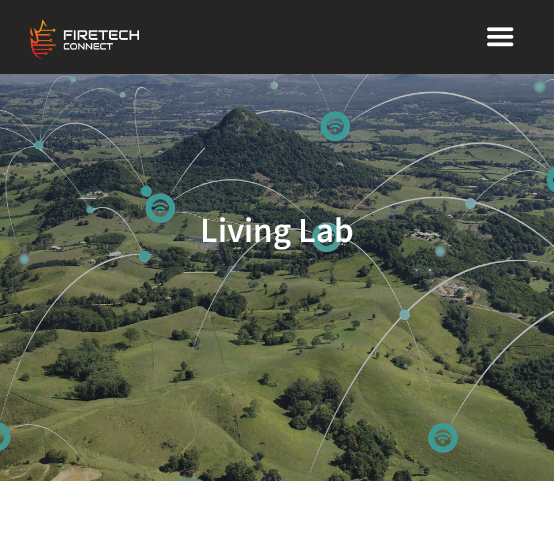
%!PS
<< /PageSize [554 534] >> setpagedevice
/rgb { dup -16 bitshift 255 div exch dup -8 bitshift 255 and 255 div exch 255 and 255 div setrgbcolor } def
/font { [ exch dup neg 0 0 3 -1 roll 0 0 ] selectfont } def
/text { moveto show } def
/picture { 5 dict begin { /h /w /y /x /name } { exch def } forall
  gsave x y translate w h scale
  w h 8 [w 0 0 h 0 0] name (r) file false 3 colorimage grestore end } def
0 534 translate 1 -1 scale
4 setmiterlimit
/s1 { /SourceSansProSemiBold-SemiBold 35 font 16#FEFEFE rgb } def
16#FFFFFF rgb
0 0 554 534 rectfill
16#252525 rgb
0 0 554 74 rectfill
(pic1.raw) 30 19 109 40 picture
(pic2.raw) 487 27 27 20 picture
(pic3.raw) 0 74 554 407 picture
s1
(Living Lab) 200 242 text
showpage
